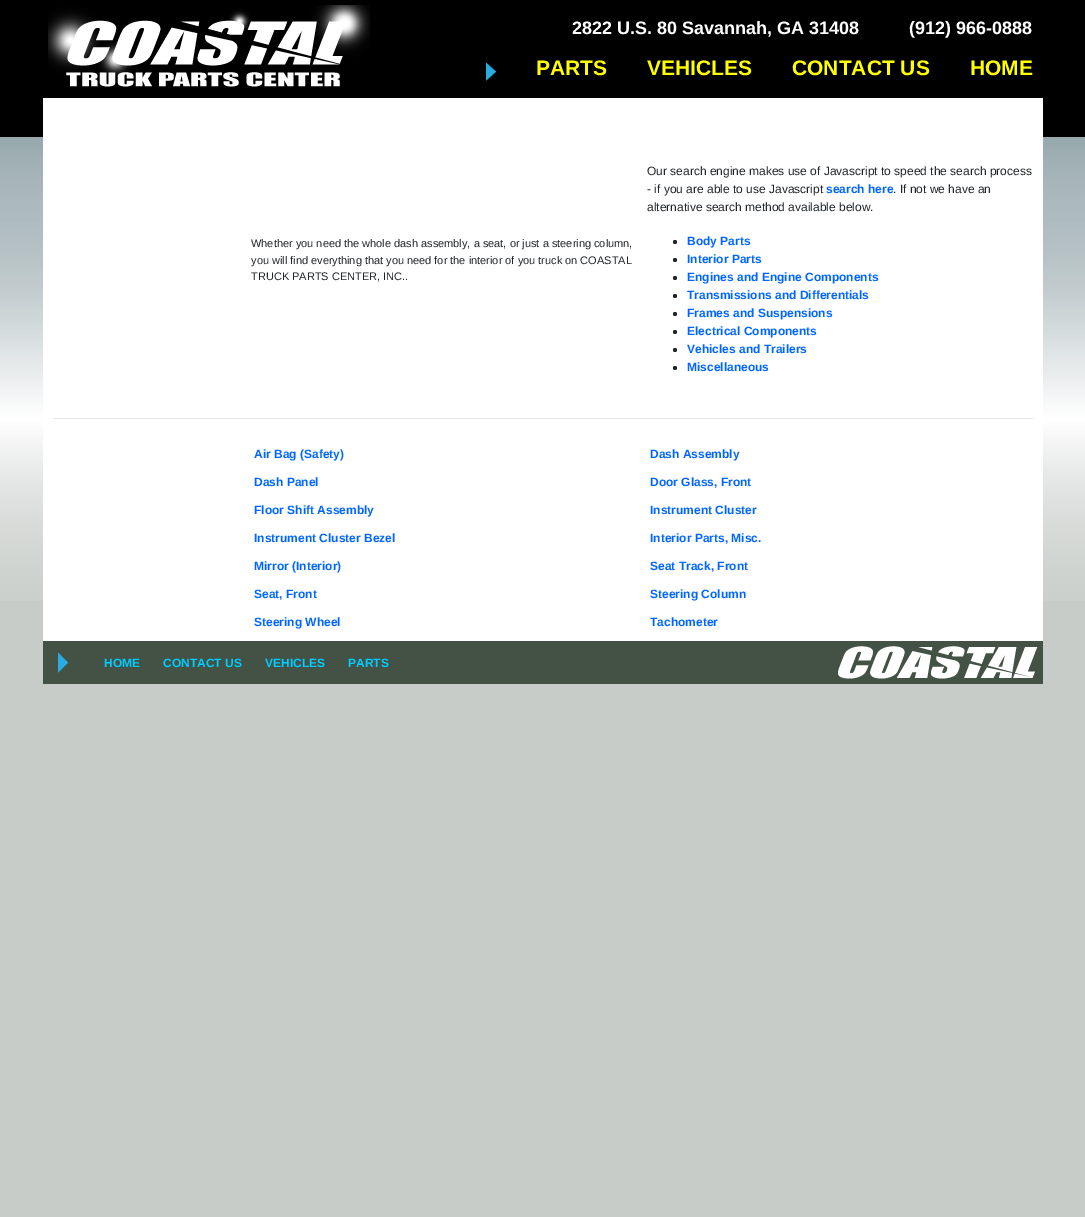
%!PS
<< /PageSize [1085 1217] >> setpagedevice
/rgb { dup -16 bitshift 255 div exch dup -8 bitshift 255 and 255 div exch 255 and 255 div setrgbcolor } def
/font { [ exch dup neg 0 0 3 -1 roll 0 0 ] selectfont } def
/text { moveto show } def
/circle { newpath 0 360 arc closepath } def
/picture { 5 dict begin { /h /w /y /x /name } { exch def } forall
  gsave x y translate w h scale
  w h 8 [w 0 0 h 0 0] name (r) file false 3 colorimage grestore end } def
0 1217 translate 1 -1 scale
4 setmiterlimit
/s1 { /LiberationSans-Bold 18 font 16#FFFFFF rgb } def
/s2 { /LiberationSans-Bold 21 font 16#FFFF00 rgb } def
/s3 { /LiberationSans-Regular 11 font 16#212529 rgb } def
/s4 { /LiberationSans-Regular 12 font 16#212529 rgb } def
/s5 { /LiberationSans-Bold 12 font 16#0066FF rgb } def
/s6 { /LiberationSans-Bold 12 font 16#00CCFF rgb } def
16#C7CCC9 rgb
0 0 1085 1217 rectfill
(pic1.raw) 0 0 1085 601 picture
(pic2.raw) 48 5 322 82 picture
s1
(2822 U.S. 80 Savannah, GA 31408          \(912\) 966-0888) 572 34 text
(pic3.raw) 486 62 10 19 picture
s2
(PARTS) 536 75 text
(VEHICLES) 647 75 text
(CONTACT US) 792 75 text
(HOME) 970 75 text
16#FFFFFF rgb
43 98 1000 543 rectfill
s3
(Whether you need the whole dash assembly, a seat, or just a steering column,) 251 247 text
(you will find everything that you need for the interior of you truck on COASTAL) 251 264 text
(TRUCK PARTS CENTER, INC..) 251 280 text
s4
(Our search engine makes use of Javascript to speed the search process) 647 175 text
(- if you are able to use Javascript) 647 193 text
s5
(search here) 826 193 text
s4
(. If not we have an) 893 193 text
(alternative search method available below.) 647 211 text
675 242 2 circle fill
s5
(Body Parts) 687 245 text
16#212529 rgb
675 260 2 circle fill
s5
(Interior Parts) 687 263 text
16#212529 rgb
675 278 2 circle fill
s5
(Engines and Engine Components) 687 281 text
16#212529 rgb
675 296 2 circle fill
s5
(Transmissions and Differentials) 687 299 text
16#212529 rgb
675 314 2 circle fill
s5
(Frames and Suspensions) 687 317 text
16#212529 rgb
675 332 2 circle fill
s5
(Electrical Components) 687 335 text
16#212529 rgb
675 350 2 circle fill
s5
(Vehicles and Trailers) 687 353 text
16#212529 rgb
675 368 2 circle fill
s5
(Miscellaneous) 687 371 text
16#E6E6E6 rgb
53 418 980 1 rectfill
s5
(Air Bag \(Safety\)) 254 458 text
(Dash Assembly) 650 458 text
(Dash Panel) 254 486 text
(Door Glass, Front) 650 486 text
(Floor Shift Assembly) 254 514 text
(Instrument Cluster) 650 514 text
(Instrument Cluster Bezel) 254 542 text
(Interior Parts, Misc.) 650 542 text
(Mirror \(Interior\)) 254 570 text
(Seat Track, Front) 650 570 text
(Seat, Front) 254 598 text
(Steering Column) 650 598 text
(Steering Wheel) 254 626 text
(Tachometer) 650 626 text
16#445245 rgb
43 641 1000 43 rectfill
(pic4.raw) 58 652 10 21 picture
s6
(HOME) 104 667 text
(CONTACT US) 163 667 text
(VEHICLES) 265 667 text
(PARTS) 348 667 text
(pic5.raw) 838 646 200 33 picture
showpage
